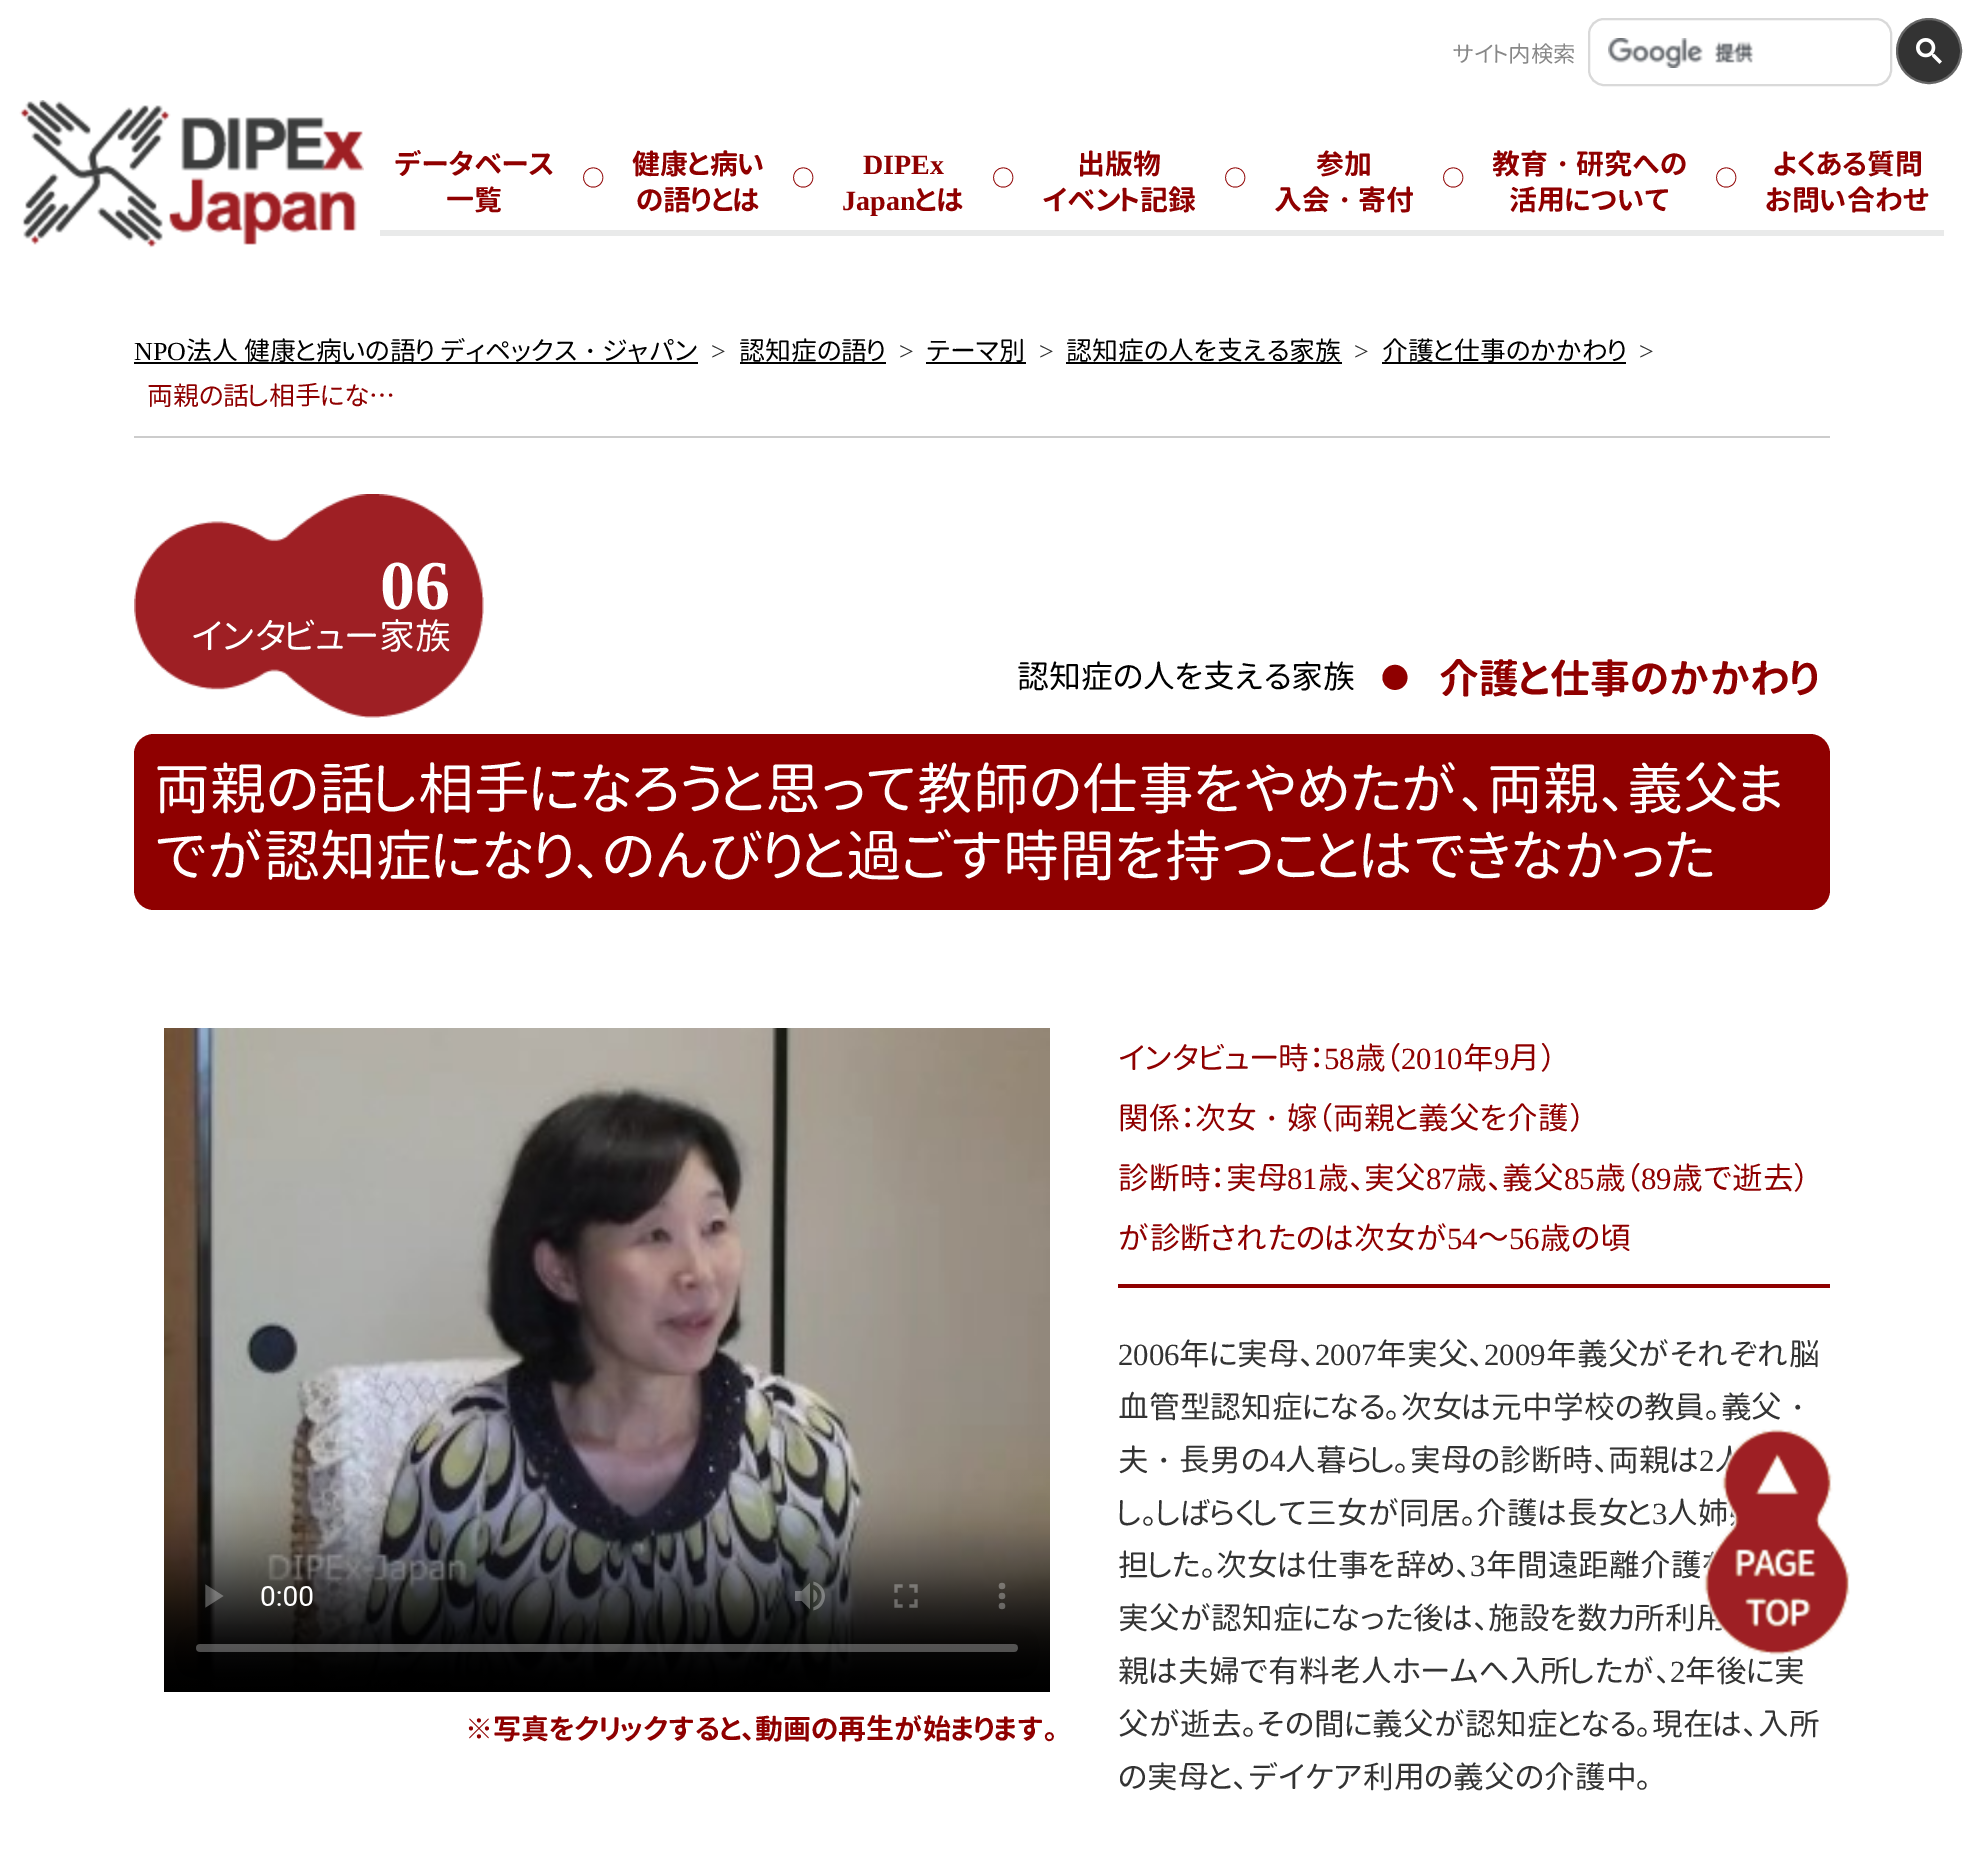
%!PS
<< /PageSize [1963 1870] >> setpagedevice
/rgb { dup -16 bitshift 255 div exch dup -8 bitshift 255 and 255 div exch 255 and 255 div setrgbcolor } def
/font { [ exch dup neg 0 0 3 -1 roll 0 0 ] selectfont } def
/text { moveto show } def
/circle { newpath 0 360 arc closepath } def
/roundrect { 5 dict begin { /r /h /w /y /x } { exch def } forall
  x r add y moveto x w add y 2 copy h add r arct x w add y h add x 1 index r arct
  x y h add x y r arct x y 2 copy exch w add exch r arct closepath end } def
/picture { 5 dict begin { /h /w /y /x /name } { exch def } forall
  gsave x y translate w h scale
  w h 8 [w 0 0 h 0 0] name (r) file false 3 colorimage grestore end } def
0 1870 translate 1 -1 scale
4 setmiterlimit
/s1 { /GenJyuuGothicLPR-Regular 22.5 font 16#888888 rgb } def
/s2 { /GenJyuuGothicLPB-Bold 28 font 16#8F0000 rgb } def
/s3 { /GenJyuuGothicLPB-Bold 22.5 font 16#8F0000 rgb } def
/s4 { /LiberationSerif-Bold 28 font 16#8F0000 rgb } def
/s5 { /WenQuanYiZenHei-Bold 28 font 16#8F0000 rgb } def
/s6 { /LiberationSerif-Regular 26 font 16#000000 rgb } def
/s7 { /GenJyuuGothicLPR-Regular 26 font 16#000000 rgb } def
/s8 { /WenQuanYiZenHei-Medium 26 font 16#000000 rgb } def
/s9 { /LiberationSerif-Regular 26 font 16#333333 rgb } def
/s10 { /GenJyuuGothicLPR-Regular 26 font 16#8F0000 rgb } def
/s11 { /LiberationSerif-Bold 70 font 16#FFFFFF rgb } def
/s12 { /GenJyuuGothicLPR-Regular 36 font 16#FFFFFF rgb } def
/s13 { /GenJyuuGothicLPR-Regular 32 font 16#000000 rgb } def
/s14 { /GenJyuuGothicLPR-Regular 28 font 16#8F0000 rgb } def
/s15 { /GenJyuuGothicLPB-Bold 40 font 16#8F0000 rgb } def
/s16 { /GenJyuuGothicLPR-Regular 56 font 16#FFFFFF rgb } def
/s17 { /GenJyuuGothicLPR-Regular 30.8 font 16#8F0000 rgb } def
/s18 { /LiberationSerif-Regular 30.8 font 16#8F0000 rgb } def
/s19 { /WenQuanYiZenHei-Medium 30.8 font 16#8F0000 rgb } def
/s20 { /LiberationSerif-Regular 30.8 font 16#333333 rgb } def
/s21 { /GenJyuuGothicLPR-Regular 30.8 font 16#333333 rgb } def
/s22 { /WenQuanYiZenHei-Medium 30.8 font 16#333333 rgb } def
16#FFFFFF rgb
0 0 1963 1870 rectfill
s1
(サイト内検索) 1452 62 text
16#D9D9D9 rgb
2 setlinewidth
1589 19 302 66 15 roundrect stroke
(pic1.raw) 1608 38 146 30 picture
16#333333 rgb
1929 51 32 circle gsave fill grestore
16#666666 rgb
stroke
(pic2.raw) 1916 38 26 26 picture
(pic3.raw) 19 100 345 148 picture
16#E9EAEA rgb
380 230 1564 6 rectfill
s2
(データベース) 394 174 text
(一覧) 446 210 text
s3
(○) 582 186 text
s2
(健康と病い) 632 174 text
(の語りとは) 636 210 text
s3
(○) 792 186 text
s4
(DIPEx) 863 174 text
(Japan) 842 210 text
s2
(とは) 915 210 text
s3
(○) 992 186 text
s2
(出版物) 1077 174 text
(イベント記録) 1042 210 text
s3
(○) 1224 186 text
s2
(参加) 1316 174 text
(入会) 1274 210 text
s5
(・) 1330 210 text
s2
(寄付) 1358 210 text
s3
(○) 1442 186 text
s2
(教育) 1492 174 text
s5
(・) 1548 174 text
s2
(研究への) 1576 174 text
(活用について) 1509 210 text
s3
(○) 1715 186 text
s2
(よくある質問) 1773 174 text
(お問い合わせ) 1765 210 text
16#CCCCCC rgb
134 436 1696 2 rectfill
s6
(NPO) 134 360 text
134 362 564 2 rectfill
s7
(法人 健康と病いの語り ディペックス) 186 360 text
s8
(・) 577 360 text
s7
(ジャパン) 603 360 text
s9
(>) 711 360 text
s7
(認知症の語り) 739 360 text
740 362 146 2 rectfill
s9
(>) 899 360 text
s7
(テーマ別) 926 360 text
926 362 100 2 rectfill
s9
(>) 1039 360 text
s7
(認知症の人を支える家族) 1066 360 text
1066 362 276 2 rectfill
s9
(>) 1354 360 text
16#000000 rgb
1382 362 244 2 rectfill
s7
(介護と仕事のかかわり) 1382 360 text
s9
(>) 1639 360 text
s10
(両親の話し相手にな…) 147 405 text
(pic4.raw) 134 494 350 224 picture
s11
(06) 380 609 text
s12
(インタビュー家族) 191 649 text
s13
(認知症の人を支える家族) 1017 688 text
s14
(●) 1381 688 text
s15
(介護と仕事のかかわり) 1439 693 text
134 734 1696 176 20 roundrect fill
s16
(両親の話し相手になろうと思って教師の仕事をやめたが、両親、義父ま) 154 809 text
(でが認知症になり、のんびりと過ごす時間を持つことはできなかった) 154 876 text
(pic5.raw) 164 1028 886 664 picture
s2
(※写真をクリックすると、動画の再生が始まります。) 465 1739 text
1118 1284 712 4 rectfill
s17
(インタビュー時：) 1118 1069 text
s18
(58) 1324 1069 text
s17
(歳（) 1355 1069 text
s18
(2010) 1401 1069 text
s17
(年) 1463 1069 text
s18
(9) 1494 1069 text
s17
(月）) 1509 1069 text
(関係：次女) 1118 1129 text
s19
(・) 1256 1129 text
s17
(嫁（両親と義父を介護）) 1287 1129 text
(診断時：実母) 1118 1189 text
s18
(81) 1287 1189 text
s17
(歳、実父) 1318 1189 text
s18
(87) 1426 1189 text
s17
(歳、義父) 1456 1189 text
s18
(85) 1564 1189 text
s17
(歳（) 1595 1189 text
s18
(89) 1641 1189 text
s17
(歳で逝去）) 1672 1189 text
(が診断されたのは次女が) 1118 1249 text
s18
(54) 1447 1249 text
s17
(～) 1478 1249 text
s18
(56) 1509 1249 text
s17
(歳の頃) 1540 1249 text
s20
(2006) 1118 1365 text
s21
(年に実母、) 1179 1365 text
s20
(2007) 1315 1365 text
s21
(年実父、) 1376 1365 text
s20
(2009) 1484 1365 text
s21
(年義父がそれぞれ脳) 1546 1365 text
(血管型認知症になる。次女は元中学校の教員。義父) 1118 1418 text
s22
(・) 1782 1418 text
s21
(夫) 1118 1471 text
s22
(・) 1148 1471 text
s21
(長男の) 1179 1471 text
s20
(4) 1270 1471 text
s21
(人暮らし。実母の診断時、両親は) 1285 1471 text
s20
(2) 1699 1471 text
s21
(し。しばらくして三女が同居。介護は長女と) 1118 1524 text
s20
(3) 1652 1524 text
s21
(人姉) 1667 1524 text
(担した。次女は仕事を辞め、) 1118 1576 text
s20
(3) 1470 1576 text
s21
(年間遠距離介護) 1486 1576 text
(実父が認知症になった後は、施設を数カ所利用) 1118 1629 text
(親は夫婦で有料老人ホームへ入所したが、) 1118 1682 text
s20
(2) 1670 1682 text
s21
(年後に実) 1685 1682 text
(父が逝去。その間に義父が認知症となる。現在は、入所) 1118 1735 text
(の実母と、デイケア利用の義父の介護中。) 1118 1788 text
(pic6.raw) 1703 1429 147 226 picture
showpage
